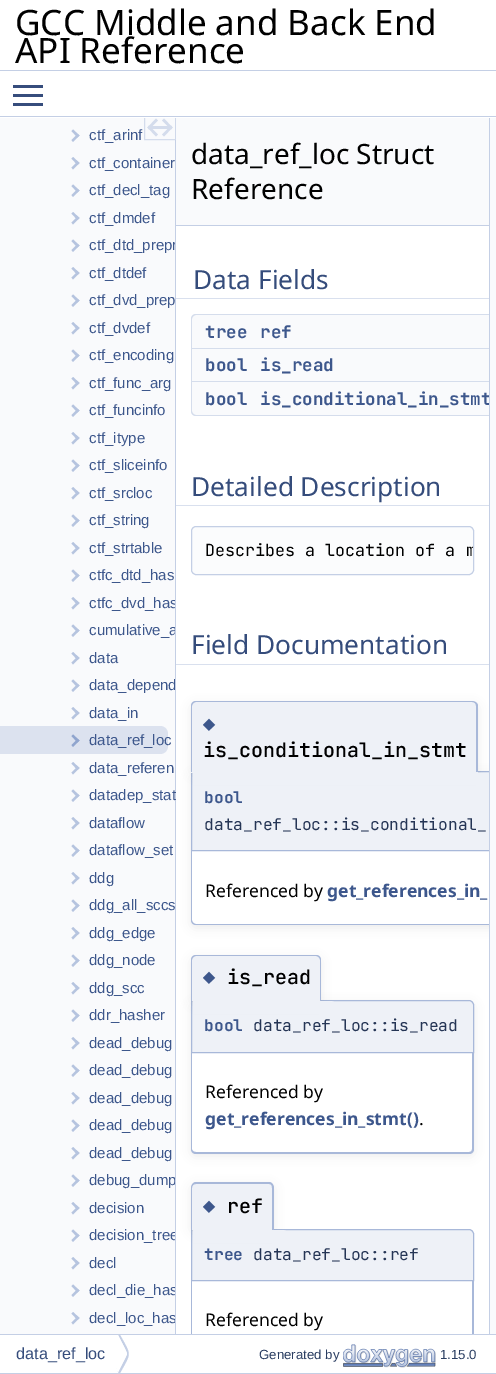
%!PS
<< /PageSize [496 1374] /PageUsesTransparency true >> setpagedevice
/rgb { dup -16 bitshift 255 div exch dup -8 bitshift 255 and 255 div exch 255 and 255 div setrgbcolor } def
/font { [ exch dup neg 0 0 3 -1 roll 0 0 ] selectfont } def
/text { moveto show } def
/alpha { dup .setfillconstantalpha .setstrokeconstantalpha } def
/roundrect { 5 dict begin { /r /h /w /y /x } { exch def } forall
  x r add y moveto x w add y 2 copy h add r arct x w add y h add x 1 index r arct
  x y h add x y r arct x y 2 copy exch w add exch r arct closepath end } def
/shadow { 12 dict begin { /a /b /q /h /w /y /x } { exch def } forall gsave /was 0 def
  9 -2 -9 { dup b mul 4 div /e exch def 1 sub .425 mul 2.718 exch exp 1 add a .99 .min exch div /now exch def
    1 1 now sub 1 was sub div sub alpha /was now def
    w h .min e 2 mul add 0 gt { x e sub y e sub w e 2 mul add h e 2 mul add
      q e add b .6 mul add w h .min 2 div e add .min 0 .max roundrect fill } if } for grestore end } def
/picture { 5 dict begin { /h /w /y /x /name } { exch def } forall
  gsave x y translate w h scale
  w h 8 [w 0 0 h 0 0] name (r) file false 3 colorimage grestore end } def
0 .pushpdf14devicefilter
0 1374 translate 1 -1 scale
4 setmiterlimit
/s1 { /NotoSans-Regular 35 font 16#000000 rgb } def
/s2 { /LiberationSans-Regular 15 font 16#3D578C rgb } def
/s3 { /NotoSans-Regular 28 font 16#000000 rgb } def
/s4 { /NotoSans-Regular 26.25 font 16#354C7B rgb } def
/s5 { /JetBrainsMono-Bold 17.5 font 16#3D578C rgb } def
/s6 { /JetBrainsMono-Regular 16.7 font 16#000000 rgb } def
/s7 { /JetBrainsMono-Regular 20 font 16#3D578C rgb } def
/s8 { /JetBrainsMono-Medium 20 font 16#000000 rgb } def
/s9 { /JetBrainsMono-Bold 16.25 font 16#3D578C rgb } def
/s10 { /JetBrainsMono-Regular 16.25 font 16#253555 rgb } def
/s11 { /NotoSans-Regular 17.5 font 16#000000 rgb } def
/s12 { /NotoSans-Bold 17.5 font 16#3D578C rgb } def
/s13 { /LiberationSans-Regular 16.25 font 16#354C7B rgb } def
/s14 { /LiberationSans-Regular 13.25 font 16#2A3D61 rgb } def
16#FFFFFF rgb
0 0 496 1374 rectfill
16#C4CFE5 rgb
0 70 496 1 rectfill
s1
(GCC Middle and Back End) 15 35 text
(API Reference) 15 63 text
16#364D7C rgb
13 94 30 3 rectfill
13 85 30 3 rectfill
13 103 30 3 rectfill
16#C4CFE5 rgb
0 116 496 1 rectfill
16#F9FAFC rgb
0 118 175 1216 rectfill
gsave
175 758 moveto 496 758 lineto 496 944 lineto 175 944 lineto closepath 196 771 moveto 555 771 lineto 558 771 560 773 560 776 curveto 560 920 lineto 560 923 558 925 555 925 curveto 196 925 lineto 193 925 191 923 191 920 curveto 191 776 lineto 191 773 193 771 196 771 curveto closepath eoclip newpath
16#000000 rgb
191 774 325 154 5 5 0.07 shadow
grestore
gsave
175 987 moveto 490 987 lineto 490 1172 lineto 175 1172 lineto closepath 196 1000 moveto 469 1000 lineto 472 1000 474 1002 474 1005 curveto 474 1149 lineto 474 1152 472 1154 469 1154 curveto 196 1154 lineto 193 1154 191 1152 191 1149 curveto 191 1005 lineto 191 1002 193 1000 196 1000 curveto closepath eoclip newpath
16#000000 rgb
191 1003 283 153 5 5 0.07 shadow
grestore
16#C4CFE5 rgb
175 118 1 1216 rectfill
0.7 alpha
16#F9FAFC rgb
175 118 1 22 rectfill
gsave
0 118 184 1216 rectclip
16#C4CFE5 rgb
144.5 116.5 31 23 rectstroke
grestore
1 alpha
16#D4DCEC rgb
147.5 127.5 moveto 156 118.5 lineto 158 120.5 lineto 149 129.5 lineto closepath fill
147.5 127.5 moveto 149 125.5 lineto 158 134.5 lineto 156 136.5 lineto closepath 162 120.5 moveto 164 118.5 lineto 172.5 127.5 lineto 171 129.5 lineto closepath fill
162 134.5 moveto 171 125.5 lineto 172.5 127.5 lineto 164 136.5 lineto closepath fill
150 126 20 3 rectfill
16#B6C4DF rgb
71.5 131 moveto 73 129.5 lineto 79.5 135.5 lineto 77.5 137.5 lineto closepath fill
71.5 140 moveto 77.5 134 lineto 79.5 135.5 lineto 73 142 lineto closepath 71.5 158.5 moveto 73 157 lineto 79.5 163 lineto 77.5 165 lineto closepath fill
s2
(ctf_arinf) 89 140 text
16#B6C4DF rgb
71.5 167.5 moveto 77.5 161.5 lineto 79.5 163 lineto 73 169.5 lineto closepath 71.5 186 moveto 73 184.5 lineto 79.5 190.5 lineto 77.5 192.5 lineto closepath fill
s2
(ctf_container) 89 168 text
16#B6C4DF rgb
71.5 195 moveto 77.5 189 lineto 79.5 190.5 lineto 73 197 lineto closepath 71.5 213.5 moveto 73 212 lineto 79.5 218 lineto 77.5 220 lineto closepath fill
s2
(ctf_decl_tag) 89 195 text
16#B6C4DF rgb
71.5 222.5 moveto 77.5 216.5 lineto 79.5 218 lineto 73 224.5 lineto closepath 71.5 241 moveto 73 239.5 lineto 79.5 245.5 lineto 77.5 247.5 lineto closepath fill
s2
(ctf_dmdef) 89 223 text
16#B6C4DF rgb
71.5 250 moveto 77.5 244 lineto 79.5 245.5 lineto 73 252 lineto closepath 71.5 268.5 moveto 73 267 lineto 79.5 273 lineto 77.5 275 lineto closepath fill
gsave
0 118 175 1216 rectclip
s2
(ctf_dtd_prepr) 89 250 text
grestore
71.5 277.5 moveto 77.5 271.5 lineto 79.5 273 lineto 73 279.5 lineto closepath 71.5 296 moveto 73 294.5 lineto 79.5 300.5 lineto 77.5 302.5 lineto closepath fill
s2
(ctf_dtdef) 89 278 text
16#B6C4DF rgb
71.5 305 moveto 77.5 299 lineto 79.5 300.5 lineto 73 307 lineto closepath 71.5 323.5 moveto 73 322 lineto 79.5 328 lineto 77.5 330 lineto closepath fill
s2
(ctf_dvd_prep) 89 305 text
16#B6C4DF rgb
71.5 332.5 moveto 77.5 326.5 lineto 79.5 328 lineto 73 334.5 lineto closepath 71.5 351 moveto 73 349.5 lineto 79.5 355.5 lineto 77.5 357.5 lineto closepath fill
s2
(ctf_dvdef) 89 333 text
16#B6C4DF rgb
71.5 360 moveto 77.5 354 lineto 79.5 355.5 lineto 73 362 lineto closepath 71.5 378.5 moveto 73 377 lineto 79.5 383 lineto 77.5 385 lineto closepath fill
s2
(ctf_encoding) 89 360 text
16#B6C4DF rgb
71.5 387.5 moveto 77.5 381.5 lineto 79.5 383 lineto 73 389.5 lineto closepath 71.5 406 moveto 73 404.5 lineto 79.5 410.5 lineto 77.5 412.5 lineto closepath fill
s2
(ctf_func_arg) 89 388 text
16#B6C4DF rgb
71.5 415 moveto 77.5 409 lineto 79.5 410.5 lineto 73 417 lineto closepath 71.5 433.5 moveto 73 432 lineto 79.5 438 lineto 77.5 440 lineto closepath fill
s2
(ctf_funcinfo) 89 415 text
16#B6C4DF rgb
71.5 442.5 moveto 77.5 436.5 lineto 79.5 438 lineto 73 444.5 lineto closepath 71.5 461 moveto 73 459.5 lineto 79.5 465.5 lineto 77.5 467.5 lineto closepath fill
s2
(ctf_itype) 89 443 text
16#B6C4DF rgb
71.5 470 moveto 77.5 464 lineto 79.5 465.5 lineto 73 472 lineto closepath 71.5 488.5 moveto 73 487 lineto 79.5 493 lineto 77.5 495 lineto closepath fill
s2
(ctf_sliceinfo) 89 470 text
16#B6C4DF rgb
71.5 497.5 moveto 77.5 491.5 lineto 79.5 493 lineto 73 499.5 lineto closepath 71.5 516 moveto 73 514.5 lineto 79.5 520.5 lineto 77.5 522.5 lineto closepath fill
s2
(ctf_srcloc) 89 498 text
16#B6C4DF rgb
71.5 525 moveto 77.5 519 lineto 79.5 520.5 lineto 73 527 lineto closepath 71.5 543.5 moveto 73 542 lineto 79.5 548 lineto 77.5 550 lineto closepath fill
s2
(ctf_string) 89 525 text
16#B6C4DF rgb
71.5 552.5 moveto 77.5 546.5 lineto 79.5 548 lineto 73 554.5 lineto closepath 71.5 571 moveto 73 569.5 lineto 79.5 575.5 lineto 77.5 577.5 lineto closepath fill
s2
(ctf_strtable) 89 553 text
16#B6C4DF rgb
71.5 580 moveto 77.5 574 lineto 79.5 575.5 lineto 73 582 lineto closepath 71.5 598.5 moveto 73 597 lineto 79.5 603 lineto 77.5 605 lineto closepath fill
s2
(ctfc_dtd_has) 89 580 text
16#B6C4DF rgb
71.5 607.5 moveto 77.5 601.5 lineto 79.5 603 lineto 73 609.5 lineto closepath 71.5 626 moveto 73 624.5 lineto 79.5 630.5 lineto 77.5 632.5 lineto closepath fill
gsave
0 118 175 1216 rectclip
s2
(ctfc_dvd_has) 89 608 text
grestore
71.5 635 moveto 77.5 629 lineto 79.5 630.5 lineto 73 637 lineto closepath 71.5 653.5 moveto 73 652 lineto 79.5 658 lineto 77.5 660 lineto closepath fill
gsave
0 118 175 1216 rectclip
s2
(cumulative_a) 89 635 text
grestore
71.5 662.5 moveto 77.5 656.5 lineto 79.5 658 lineto 73 664.5 lineto closepath 71.5 681 moveto 73 679.5 lineto 79.5 685.5 lineto 77.5 687.5 lineto closepath fill
s2
(data) 89 663 text
16#B6C4DF rgb
71.5 690 moveto 77.5 684 lineto 79.5 685.5 lineto 73 692 lineto closepath 71.5 708.5 moveto 73 707 lineto 79.5 713 lineto 77.5 715 lineto closepath fill
gsave
0 118 175 1216 rectclip
s2
(data_depend) 89 690 text
grestore
71.5 717.5 moveto 77.5 711.5 lineto 79.5 713 lineto 73 719.5 lineto closepath fill
s2
(data_in) 89 718 text
16#DCE2EF rgb
0 726 moveto 160 726 lineto 164.5 726 168 729.5 168 734 curveto 168 746 lineto 168 750.5 164.5 754 160 754 curveto 0 754 lineto closepath fill
16#90A5CE rgb
71.5 736 moveto 73 734.5 lineto 79.5 740.5 lineto 77.5 742.5 lineto closepath fill
71.5 745 moveto 77.5 739 lineto 79.5 740.5 lineto 73 747 lineto closepath fill
s2
(data_ref_loc) 89 745 text
16#B6C4DF rgb
71.5 763.5 moveto 73 762 lineto 79.5 768 lineto 77.5 770 lineto closepath fill
71.5 772.5 moveto 77.5 766.5 lineto 79.5 768 lineto 73 774.5 lineto closepath 71.5 791 moveto 73 789.5 lineto 79.5 795.5 lineto 77.5 797.5 lineto closepath fill
s2
(data_referen) 89 773 text
16#B6C4DF rgb
71.5 800 moveto 77.5 794 lineto 79.5 795.5 lineto 73 802 lineto closepath 71.5 818.5 moveto 73 817 lineto 79.5 823 lineto 77.5 825 lineto closepath fill
s2
(datadep_stat) 89 800 text
16#B6C4DF rgb
71.5 827.5 moveto 77.5 821.5 lineto 79.5 823 lineto 73 829.5 lineto closepath 71.5 846 moveto 73 844.5 lineto 79.5 850.5 lineto 77.5 852.5 lineto closepath fill
s2
(dataflow) 89 828 text
16#B6C4DF rgb
71.5 855 moveto 77.5 849 lineto 79.5 850.5 lineto 73 857 lineto closepath 71.5 873.5 moveto 73 872 lineto 79.5 878 lineto 77.5 880 lineto closepath fill
s2
(dataflow_set) 89 855 text
16#B6C4DF rgb
71.5 882.5 moveto 77.5 876.5 lineto 79.5 878 lineto 73 884.5 lineto closepath 71.5 901 moveto 73 899.5 lineto 79.5 905.5 lineto 77.5 907.5 lineto closepath fill
s2
(ddg) 89 883 text
16#B6C4DF rgb
71.5 910 moveto 77.5 904 lineto 79.5 905.5 lineto 73 912 lineto closepath 71.5 928.5 moveto 73 927 lineto 79.5 933 lineto 77.5 935 lineto closepath fill
s2
(ddg_all_sccs) 89 910 text
16#B6C4DF rgb
71.5 937.5 moveto 77.5 931.5 lineto 79.5 933 lineto 73 939.5 lineto closepath 71.5 956 moveto 73 954.5 lineto 79.5 960.5 lineto 77.5 962.5 lineto closepath fill
s2
(ddg_edge) 89 938 text
16#B6C4DF rgb
71.5 965 moveto 77.5 959 lineto 79.5 960.5 lineto 73 967 lineto closepath 71.5 983.5 moveto 73 982 lineto 79.5 988 lineto 77.5 990 lineto closepath fill
s2
(ddg_node) 89 965 text
16#B6C4DF rgb
71.5 992.5 moveto 77.5 986.5 lineto 79.5 988 lineto 73 994.5 lineto closepath 71.5 1011 moveto 73 1009.5 lineto 79.5 1015.5 lineto 77.5 1017.5 lineto closepath fill
s2
(ddg_scc) 89 993 text
16#B6C4DF rgb
71.5 1020 moveto 77.5 1014 lineto 79.5 1015.5 lineto 73 1022 lineto closepath 71.5 1038.5 moveto 73 1037 lineto 79.5 1043 lineto 77.5 1045 lineto closepath fill
s2
(ddr_hasher) 89 1020 text
16#B6C4DF rgb
71.5 1047.5 moveto 77.5 1041.5 lineto 79.5 1043 lineto 73 1049.5 lineto closepath 71.5 1066 moveto 73 1064.5 lineto 79.5 1070.5 lineto 77.5 1072.5 lineto closepath fill
s2
(dead_debug) 89 1048 text
16#B6C4DF rgb
71.5 1075 moveto 77.5 1069 lineto 79.5 1070.5 lineto 73 1077 lineto closepath 71.5 1093.5 moveto 73 1092 lineto 79.5 1098 lineto 77.5 1100 lineto closepath fill
s2
(dead_debug) 89 1075 text
16#B6C4DF rgb
71.5 1102.5 moveto 77.5 1096.5 lineto 79.5 1098 lineto 73 1104.5 lineto closepath 71.5 1121 moveto 73 1119.5 lineto 79.5 1125.5 lineto 77.5 1127.5 lineto closepath fill
s2
(dead_debug) 89 1103 text
16#B6C4DF rgb
71.5 1130 moveto 77.5 1124 lineto 79.5 1125.5 lineto 73 1132 lineto closepath 71.5 1148.5 moveto 73 1147 lineto 79.5 1153 lineto 77.5 1155 lineto closepath fill
s2
(dead_debug) 89 1130 text
16#B6C4DF rgb
71.5 1157.5 moveto 77.5 1151.5 lineto 79.5 1153 lineto 73 1159.5 lineto closepath 71.5 1176 moveto 73 1174.5 lineto 79.5 1180.5 lineto 77.5 1182.5 lineto closepath fill
s2
(dead_debug) 89 1158 text
16#B6C4DF rgb
71.5 1185 moveto 77.5 1179 lineto 79.5 1180.5 lineto 73 1187 lineto closepath 71.5 1203.5 moveto 73 1202 lineto 79.5 1208 lineto 77.5 1210 lineto closepath fill
gsave
0 118 175 1216 rectclip
s2
(debug_dump) 89 1185 text
grestore
71.5 1212.5 moveto 77.5 1206.5 lineto 79.5 1208 lineto 73 1214.5 lineto closepath 71.5 1231 moveto 73 1229.5 lineto 79.5 1235.5 lineto 77.5 1237.5 lineto closepath fill
s2
(decision) 89 1213 text
16#B6C4DF rgb
71.5 1240 moveto 77.5 1234 lineto 79.5 1235.5 lineto 73 1242 lineto closepath 71.5 1258.5 moveto 73 1257 lineto 79.5 1263 lineto 77.5 1265 lineto closepath fill
gsave
0 118 175 1216 rectclip
s2
(decision_tree) 89 1240 text
grestore
71.5 1267.5 moveto 77.5 1261.5 lineto 79.5 1263 lineto 73 1269.5 lineto closepath 71.5 1286 moveto 73 1284.5 lineto 79.5 1290.5 lineto 77.5 1292.5 lineto closepath fill
s2
(decl) 89 1268 text
16#B6C4DF rgb
71.5 1295 moveto 77.5 1289 lineto 79.5 1290.5 lineto 73 1297 lineto closepath 71.5 1313.5 moveto 73 1312 lineto 79.5 1318 lineto 77.5 1320 lineto closepath fill
gsave
0 118 175 1216 rectclip
s2
(decl_die_has) 89 1295 text
grestore
71.5 1322.5 moveto 77.5 1316.5 lineto 79.5 1318 lineto 73 1324.5 lineto closepath fill
gsave
0 118 175 1216 rectclip
s2
(decl_loc_has) 89 1323 text
grestore
16#F9FAFC rgb
176 118 313 107 rectfill
16#C4CFE5 rgb
176 225 313 1 rectfill
s3
(data_ref_loc Struct) 191 164 text
(Reference) 191 199 text
16#D9E0EE rgb
176 256 moveto 176 299 lineto 488 299 lineto 488 298 lineto 192 298 lineto 192 256 lineto closepath fill
209 298 moveto 209 299 lineto 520 299 lineto 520 256 lineto 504 256 lineto 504 298 lineto closepath fill
16#FFFFFF rgb
176 255 moveto 176 298 lineto 488 298 lineto 192 298 lineto 192 255 lineto closepath fill
s4
(Data Fields) 193 289 text
16#F9FAFC rgb
196 314 moveto 259 314 lineto 259 349 lineto 191 349 lineto 191 319 lineto 191 316 193 314 196 314 curveto closepath fill
16#D5DDEC rgb
196 314 moveto 259 314 lineto 259 349 lineto 191 349 lineto 191 319 lineto 191 316 193 314 196 314 curveto closepath 196 315 moveto 259 315 lineto 259 348 lineto 192 348 lineto 192 319 lineto 192 317 194 315 196 315 curveto closepath eofill
s5
(tree) 205 338 text
16#F9FAFC rgb
259 315 230 33 rectfill
16#D5DDEC rgb
259 314 moveto 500 314 lineto 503 314 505 316 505 319 curveto 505 349 lineto 259 349 lineto closepath 259 315 moveto 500 315 lineto 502 315 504 317 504 319 curveto 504 348 lineto 259 348 lineto closepath eofill
s5
(ref) 260 338 text
16#F9FAFC rgb
192 349 297 34 rectfill
16#D5DDEC rgb
191 381 298 1 rectfill
191 349 1 34 rectfill
s5
(bool) 205 371 text
(is_read) 260 371 text
16#F9FAFC rgb
191 383 moveto 259 383 lineto 259 416 lineto 196 416 lineto 193 416 191 414 191 411 curveto closepath fill
16#D5DDEC rgb
191 382 moveto 259 382 lineto 259 416 lineto 196 416 lineto 193 416 191 414 191 411 curveto closepath 192 382 moveto 259 382 lineto 259 415 lineto 196 415 lineto 194 415 192 413 192 411 curveto closepath eofill
s5
(bool) 205 405 text
16#F9FAFC rgb
259 383 230 32 rectfill
16#D5DDEC rgb
259 382 moveto 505 382 lineto 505 411 lineto 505 414 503 416 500 416 curveto 259 416 lineto closepath 259 382 moveto 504 382 lineto 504 411 lineto 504 413 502 415 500 415 curveto 259 415 lineto closepath eofill
s5
(is_conditional_in_stmt) 260 405 text
16#D9E0EE rgb
176 464 moveto 176 506 lineto 459 506 lineto 459 505 lineto 191 505 lineto 191 464 lineto closepath fill
206 505 moveto 206 506 lineto 489 506 lineto 489 464 lineto 474 464 lineto 474 505 lineto closepath fill
16#FFFFFF rgb
176 464 15 41 rectfill
474 464 15 41 rectfill
s4
(Detailed Description) 191 496 text
16#FBFCFD rgb
191.5 526.5 282 48 4.5 roundrect gsave fill grestore
16#C4CFE5 rgb
stroke
gsave
193 528 280 46 4 roundrect clip newpath
s6
(Describes a location of a m) 205 556 text
grestore
16#D9E0EE rgb
176 623 moveto 176 665 lineto 459 665 lineto 459 664 lineto 191 664 lineto 191 623 lineto closepath fill
206 664 moveto 206 665 lineto 489 665 lineto 489 623 lineto 474 623 lineto 474 664 lineto closepath fill
16#FFFFFF rgb
176 621 moveto 176 664 lineto 459 664 lineto 191 664 lineto 191 621 lineto 459 621 lineto closepath fill
206 621 moveto 474 621 lineto 474 664 lineto 206 664 lineto 489 664 lineto 489 621 lineto closepath fill
s4
(Field Documentation) 191 654 text
16#EEF1F7 rgb
192 772 297 78 rectfill
16#A8B8D9 rgb
191.5 771.5 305 79 rectstroke
16#000000 rgb
191 704 287 71 5 5 0.07 shadow
16#EEF1F7 rgb
196 701 moveto 473 701 lineto 476 701 478 703 478 706 curveto 478 773 lineto 191 773 lineto 191 706 lineto 191 703 193 701 196 701 curveto closepath fill
16#A8B8D9 rgb
196 701 moveto 472 701 lineto 475 701 478 703 478 706 curveto 478 772 lineto 191 772 lineto 191 706 lineto 191 703 193 701 196 701 curveto closepath 196 702 moveto 472 702 lineto 475 702 476 704 476 706 curveto 476 772 lineto 192 772 lineto 192 706 lineto 192 704 194 702 196 702 curveto closepath eofill
s7
(◆) 203 732 text
s8
(is_conditional_in_stmt) 203 757 text
16#EEF1F7 rgb
193 773 moveto 486 773 lineto 490.5 773 494 776.5 494 781 curveto 494 785 lineto 193 785 lineto closepath fill
s9
(bool) 204 803 text
s10
(data_ref_loc::is_conditional_) 204 830 text
16#A8B8D9 rgb
191 851 moveto 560 851 lineto 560 920 lineto 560 923 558 925 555 925 curveto 196 925 lineto 193 925 191 923 191 920 curveto closepath 192 851 moveto 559 851 lineto 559 920 lineto 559 922 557 924 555 924 curveto 196 924 lineto 194 924 192 922 192 920 curveto closepath eofill
s11
(Referenced by) 205 897 text
s12
(get_references_in_) 327 897 text
16#EEF1F7 rgb
191.5 1000.5 moveto 469 1000.5 lineto 471.5 1000.5 473.5 1002.5 473.5 1005 curveto 473.5 1052.5 lineto 191.5 1052.5 lineto closepath gsave fill grestore
16#A8B8D9 rgb
stroke
16#000000 rgb
191 958 130 46 5 5 0.07 shadow
16#EEF1F7 rgb
196 955 moveto 316 955 lineto 319 955 321 957 321 960 curveto 321 1001 lineto 191 1001 lineto 191 960 lineto 191 957 193 955 196 955 curveto closepath fill
16#A8B8D9 rgb
196 955 moveto 316 955 lineto 319 955 321 957 321 960 curveto 321 1001 lineto 191 1001 lineto 191 960 lineto 191 957 193 955 196 955 curveto closepath 196 956 moveto 316 956 lineto 318 956 320 958 320 960 curveto 320 1001 lineto 192 1001 lineto 192 960 lineto 192 958 194 956 196 956 curveto closepath eofill
s7
(◆) 203 985 text
s8
(is_read) 227 984 text
16#EEF1F7 rgb
193 1001 moveto 330 1001 lineto 334.5 1001 338 1004.5 338 1009 curveto 338 1014 lineto 193 1014 lineto closepath fill
s9
(bool) 204 1031 text
s10
(data_ref_loc::is_read) 253 1031 text
16#A8B8D9 rgb
191 1052 moveto 474 1052 lineto 474 1149 lineto 474 1152 472 1154 469 1154 curveto 196 1154 lineto 193 1154 191 1152 191 1149 curveto closepath 192 1052 moveto 472 1052 lineto 472 1149 lineto 472 1151 471 1152 469 1152 curveto 196 1152 lineto 194 1152 192 1151 192 1149 curveto closepath eofill
s11
(Referenced by) 205 1098 text
s12
(get_references_in_stmt\(\)) 205 1125 text
s11
(.) 419 1125 text
16#EEF1F7 rgb
191.5 1229.5 moveto 469 1229.5 lineto 471.5 1229.5 473.5 1231.5 473.5 1234 curveto 473.5 1280.5 lineto 191.5 1280.5 lineto closepath gsave fill grestore
16#A8B8D9 rgb
stroke
16#000000 rgb
191 1185 83 48 5 5 0.07 shadow
16#EEF1F7 rgb
196 1183 moveto 269 1183 lineto 272 1183 274 1185 274 1188 curveto 274 1230 lineto 191 1230 lineto 191 1188 lineto 191 1185 193 1183 196 1183 curveto closepath fill
16#A8B8D9 rgb
196 1182 moveto 269 1182 lineto 272 1182 274 1185 274 1188 curveto 274 1230 lineto 191 1230 lineto 191 1188 lineto 191 1185 193 1182 196 1182 curveto closepath 196 1184 moveto 269 1184 lineto 271 1184 272 1185 272 1188 curveto 272 1230 lineto 192 1230 lineto 192 1188 lineto 192 1185 194 1184 196 1184 curveto closepath eofill
s7
(◆) 203 1214 text
s8
(ref) 227 1213 text
16#EEF1F7 rgb
193 1230 moveto 282 1230 lineto 286.5 1230 290 1233.5 290 1238 curveto 290 1243 lineto 193 1243 lineto closepath fill
s9
(tree) 204 1260 text
s10
(data_ref_loc::ref) 253 1260 text
gsave
176 118 313 1216 rectclip
16#A8B8D9 rgb
191 1281 moveto 474 1281 lineto 474 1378 lineto 474 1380 472 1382 469 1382 curveto 196 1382 lineto 193 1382 191 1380 191 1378 curveto closepath 192 1281 moveto 472 1281 lineto 472 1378 lineto 472 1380 471 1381 469 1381 curveto 196 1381 lineto 194 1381 192 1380 192 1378 curveto closepath eofill
grestore
s11
(Referenced by) 205 1326 text
16#F9FAFC rgb
490 118 6 1216 rectfill
16#C4CFE5 rgb
489 118 1 1216 rectfill
0 1334 496 1 rectfill
0 1373 496 1 rectfill
s13
(data_ref_loc) 16 1359 text
gsave
0 1335 496 38 rectclip
16#C4CFE5 rgb
119 1333 moveto 118 1335 lineto 130 1358 129 1350 118 1372 curveto 116 1365 lineto 119 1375 lineto 132 1351 132 1357 119 1333 curveto closepath fill
grestore
16#FFFFFF rgb
118 1335 moveto 126.5 1352 lineto 127 1353 127 1354.5 126.5 1355.5 curveto 118 1372.5 lineto 113 1362 113 1345.5 118 1335 curveto closepath fill
s14
(Generated by) 259 1359 text
(pic1.raw) 343 1344 93 24 picture
(1.15.0) 440 1359 text
.poppdf14devicefilter showpage
